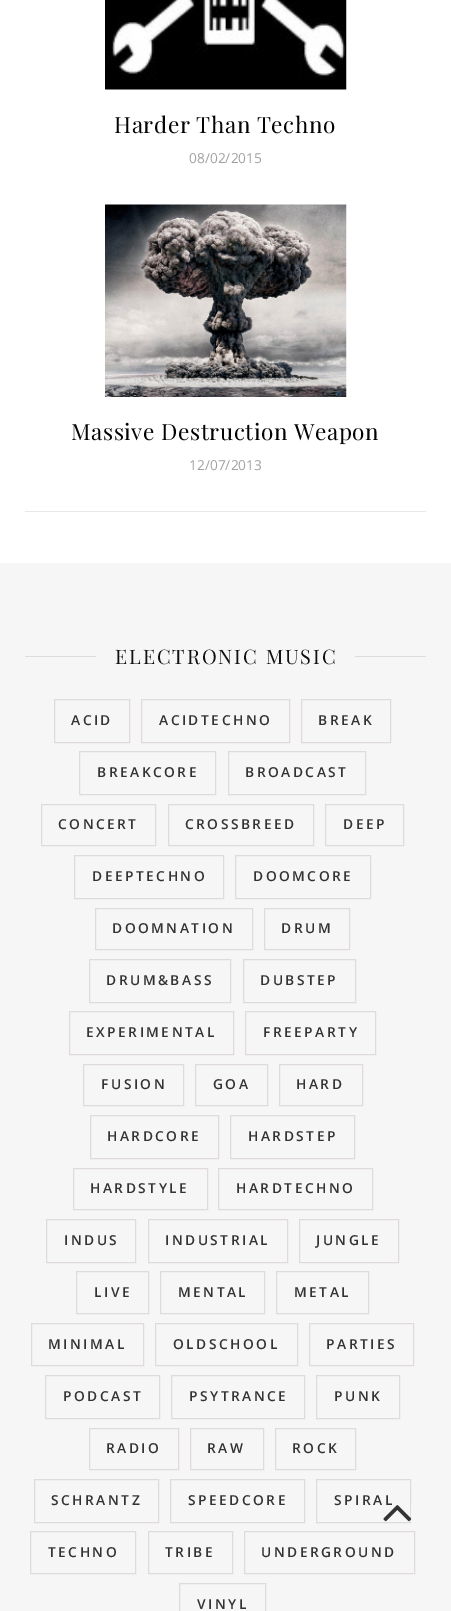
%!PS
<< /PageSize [451 1611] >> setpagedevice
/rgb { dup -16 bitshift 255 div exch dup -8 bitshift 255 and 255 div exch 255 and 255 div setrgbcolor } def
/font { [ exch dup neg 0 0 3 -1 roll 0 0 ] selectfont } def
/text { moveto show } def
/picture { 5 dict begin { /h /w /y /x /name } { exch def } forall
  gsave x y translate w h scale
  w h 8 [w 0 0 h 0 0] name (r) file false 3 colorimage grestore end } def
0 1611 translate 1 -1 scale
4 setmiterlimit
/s1 { /OpenSans-Regular 13.75 font 16#A1A1A1 rgb } def
16#FFFFFF rgb
0 0 451 1611 rectfill
16#E8E8E8 rgb
25 511 401 1 rectfill
(pic1.raw) 105 0 242 90 picture
/PlayfairDisplay-Regular 22.5 font
16#030303 rgb
114 133 moveto 0.6 0 (Harder Than Techno) ashow
s1
(08/02/2015) 189 163 text
(pic2.raw) 105 204 242 193 picture
/PlayfairDisplay-Regular 22.5 font
16#030303 rgb
71 440 moveto 0.6 0 (Massive Destruction Weapon) ashow
s1
(12/07/2013) 189 470 text
16#F6F6F6 rgb
0 563 451 1048 rectfill
16#E0DBDB rgb
25 656 71 1 rectfill
/PlayfairDisplay-Regular 20 font
16#111111 rgb
115 664 moveto 1.9 0 (ELECTRONIC MUSIC) ashow
16#E0DBDB rgb
355 656 71 1 rectfill
54.5 699.5 75 43 rectstroke
/OpenSans-SemiBold 13.75 font
16#333333 rgb
71 725 moveto 2.5 0 (ACID) ashow
16#E0DBDB rgb
141.5 699.5 148 43 rectstroke
16#333333 rgb
159 725 moveto 2.5 0 (ACIDTECHNO) ashow
16#E0DBDB rgb
301.5 699.5 89 43 rectstroke
16#333333 rgb
318 725 moveto 2.5 0 (BREAK) ashow
16#E0DBDB rgb
79.5 751.5 136 43 rectstroke
16#333333 rgb
97 777 moveto 2.5 0 (BREAKCORE) ashow
16#E0DBDB rgb
228.5 751.5 137 43 rectstroke
16#333333 rgb
245 777 moveto 2.5 0 (BROADCAST) ashow
16#E0DBDB rgb
41.5 804.5 114 41 rectstroke
16#333333 rgb
58 829 moveto 2.5 0 (CONCERT) ashow
16#E0DBDB rgb
168.5 804.5 145 41 rectstroke
16#333333 rgb
185 829 moveto 2.5 0 (CROSSBREED) ashow
16#E0DBDB rgb
325.5 804.5 78 41 rectstroke
16#333333 rgb
343 829 moveto 2.5 0 (DEEP) ashow
16#E0DBDB rgb
74.5 855.5 149 43 rectstroke
16#333333 rgb
92 881 moveto 2.5 0 (DEEPTECHNO) ashow
16#E0DBDB rgb
235.5 855.5 135 43 rectstroke
16#333333 rgb
253 881 moveto 2.5 0 (DOOMCORE) ashow
16#E0DBDB rgb
95.5 908.5 157 41 rectstroke
16#333333 rgb
112 933 moveto 2.5 0 (DOOMNATION) ashow
16#E0DBDB rgb
264.5 908.5 85 41 rectstroke
16#333333 rgb
281 933 moveto 2.5 0 (DRUM) ashow
16#E0DBDB rgb
89.5 959.5 141 43 rectstroke
16#333333 rgb
106 985 moveto 2.5 0 (DRUM&BASS) ashow
16#E0DBDB rgb
243.5 959.5 112 43 rectstroke
16#333333 rgb
260 985 moveto 2.5 0 (DUBSTEP) ashow
16#E0DBDB rgb
69.5 1011.5 164 43 rectstroke
16#333333 rgb
86 1037 moveto 2.5 0 (EXPERIMENTAL) ashow
16#E0DBDB rgb
245.5 1011.5 130 43 rectstroke
16#333333 rgb
263 1037 moveto 2.5 0 (FREEPARTY) ashow
16#E0DBDB rgb
83.5 1064.5 100 41 rectstroke
16#333333 rgb
101 1089 moveto 2.5 0 (FUSION) ashow
16#E0DBDB rgb
195.5 1064.5 72 41 rectstroke
16#333333 rgb
213 1089 moveto 2.5 0 (GOA) ashow
16#E0DBDB rgb
279.5 1064.5 83 41 rectstroke
16#333333 rgb
296 1089 moveto 2.5 0 (HARD) ashow
16#E0DBDB rgb
90.5 1115.5 128 43 rectstroke
16#333333 rgb
107 1141 moveto 2.5 0 (HARDCORE) ashow
16#E0DBDB rgb
230.5 1115.5 124 43 rectstroke
16#333333 rgb
248 1141 moveto 2.5 0 (HARDSTEP) ashow
16#E0DBDB rgb
73.5 1168.5 134 41 rectstroke
16#333333 rgb
90 1193 moveto 2.5 0 (HARDSTYLE) ashow
16#E0DBDB rgb
218.5 1168.5 154 41 rectstroke
16#333333 rgb
236 1193 moveto 2.5 0 (HARDTECHNO) ashow
16#E0DBDB rgb
46.5 1219.5 89 43 rectstroke
16#333333 rgb
64 1245 moveto 2.5 0 (INDUS) ashow
16#E0DBDB rgb
148.5 1219.5 139 43 rectstroke
16#333333 rgb
165 1245 moveto 2.5 0 (INDUSTRIAL) ashow
16#E0DBDB rgb
299.5 1219.5 99 43 rectstroke
16#333333 rgb
316 1245 moveto 2.5 0 (JUNGLE) ashow
16#E0DBDB rgb
76.5 1271.5 72 42 rectstroke
16#333333 rgb
94 1297 moveto 2.5 0 (LIVE) ashow
16#E0DBDB rgb
160.5 1271.5 104 42 rectstroke
16#333333 rgb
178 1297 moveto 2.5 0 (MENTAL) ashow
16#E0DBDB rgb
276.5 1271.5 92 42 rectstroke
16#333333 rgb
294 1297 moveto 2.5 0 (METAL) ashow
16#E0DBDB rgb
31.5 1323.5 112 42 rectstroke
16#333333 rgb
48 1349 moveto 2.5 0 (MINIMAL) ashow
16#E0DBDB rgb
155.5 1323.5 142 42 rectstroke
16#333333 rgb
173 1349 moveto 2.5 0 (OLDSCHOOL) ashow
16#E0DBDB rgb
309.5 1323.5 104 42 rectstroke
16#333333 rgb
326 1349 moveto 2.5 0 (PARTIES) ashow
16#E0DBDB rgb
45.5 1375.5 114 43 rectstroke
16#333333 rgb
63 1401 moveto 2.5 0 (PODCAST) ashow
16#E0DBDB rgb
171.5 1375.5 133 43 rectstroke
16#333333 rgb
189 1401 moveto 2.5 0 (PSYTRANCE) ashow
16#E0DBDB rgb
316.5 1375.5 83 43 rectstroke
16#333333 rgb
334 1401 moveto 2.5 0 (PUNK) ashow
16#E0DBDB rgb
89.5 1428.5 89 41 rectstroke
16#333333 rgb
106 1453 moveto 2.5 0 (RADIO) ashow
16#E0DBDB rgb
190.5 1428.5 73 41 rectstroke
16#333333 rgb
207 1453 moveto 2.5 0 (RAW) ashow
16#E0DBDB rgb
275.5 1428.5 80 41 rectstroke
16#333333 rgb
292 1453 moveto 2.5 0 (ROCK) ashow
16#E0DBDB rgb
34.5 1479.5 124 43 rectstroke
16#333333 rgb
51 1505 moveto 2.5 0 (SCHRANTZ) ashow
16#E0DBDB rgb
170.5 1479.5 134 43 rectstroke
16#333333 rgb
188 1505 moveto 2.5 0 (SPEEDCORE) ashow
16#E0DBDB rgb
316.5 1479.5 94 43 rectstroke
16#333333 rgb
334 1505 moveto 2.5 0 (SPIRAL) ashow
16#E0DBDB rgb
30.5 1531.5 105 42 rectstroke
16#333333 rgb
48 1557 moveto 2.5 0 (TECHNO) ashow
16#E0DBDB rgb
148.5 1531.5 84 42 rectstroke
16#333333 rgb
165 1557 moveto 2.5 0 (TRIBE) ashow
16#E0DBDB rgb
244.5 1531.5 170 42 rectstroke
16#333333 rgb
261 1557 moveto 2.5 0 (UNDERGROUND) ashow
16#E0DBDB rgb
179.5 1583.5 86 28 rectstroke
16#333333 rgb
197 1609 moveto 2.5 0 (VINYL) ashow
(pic3.raw) 383 1505 29 17 picture
showpage
